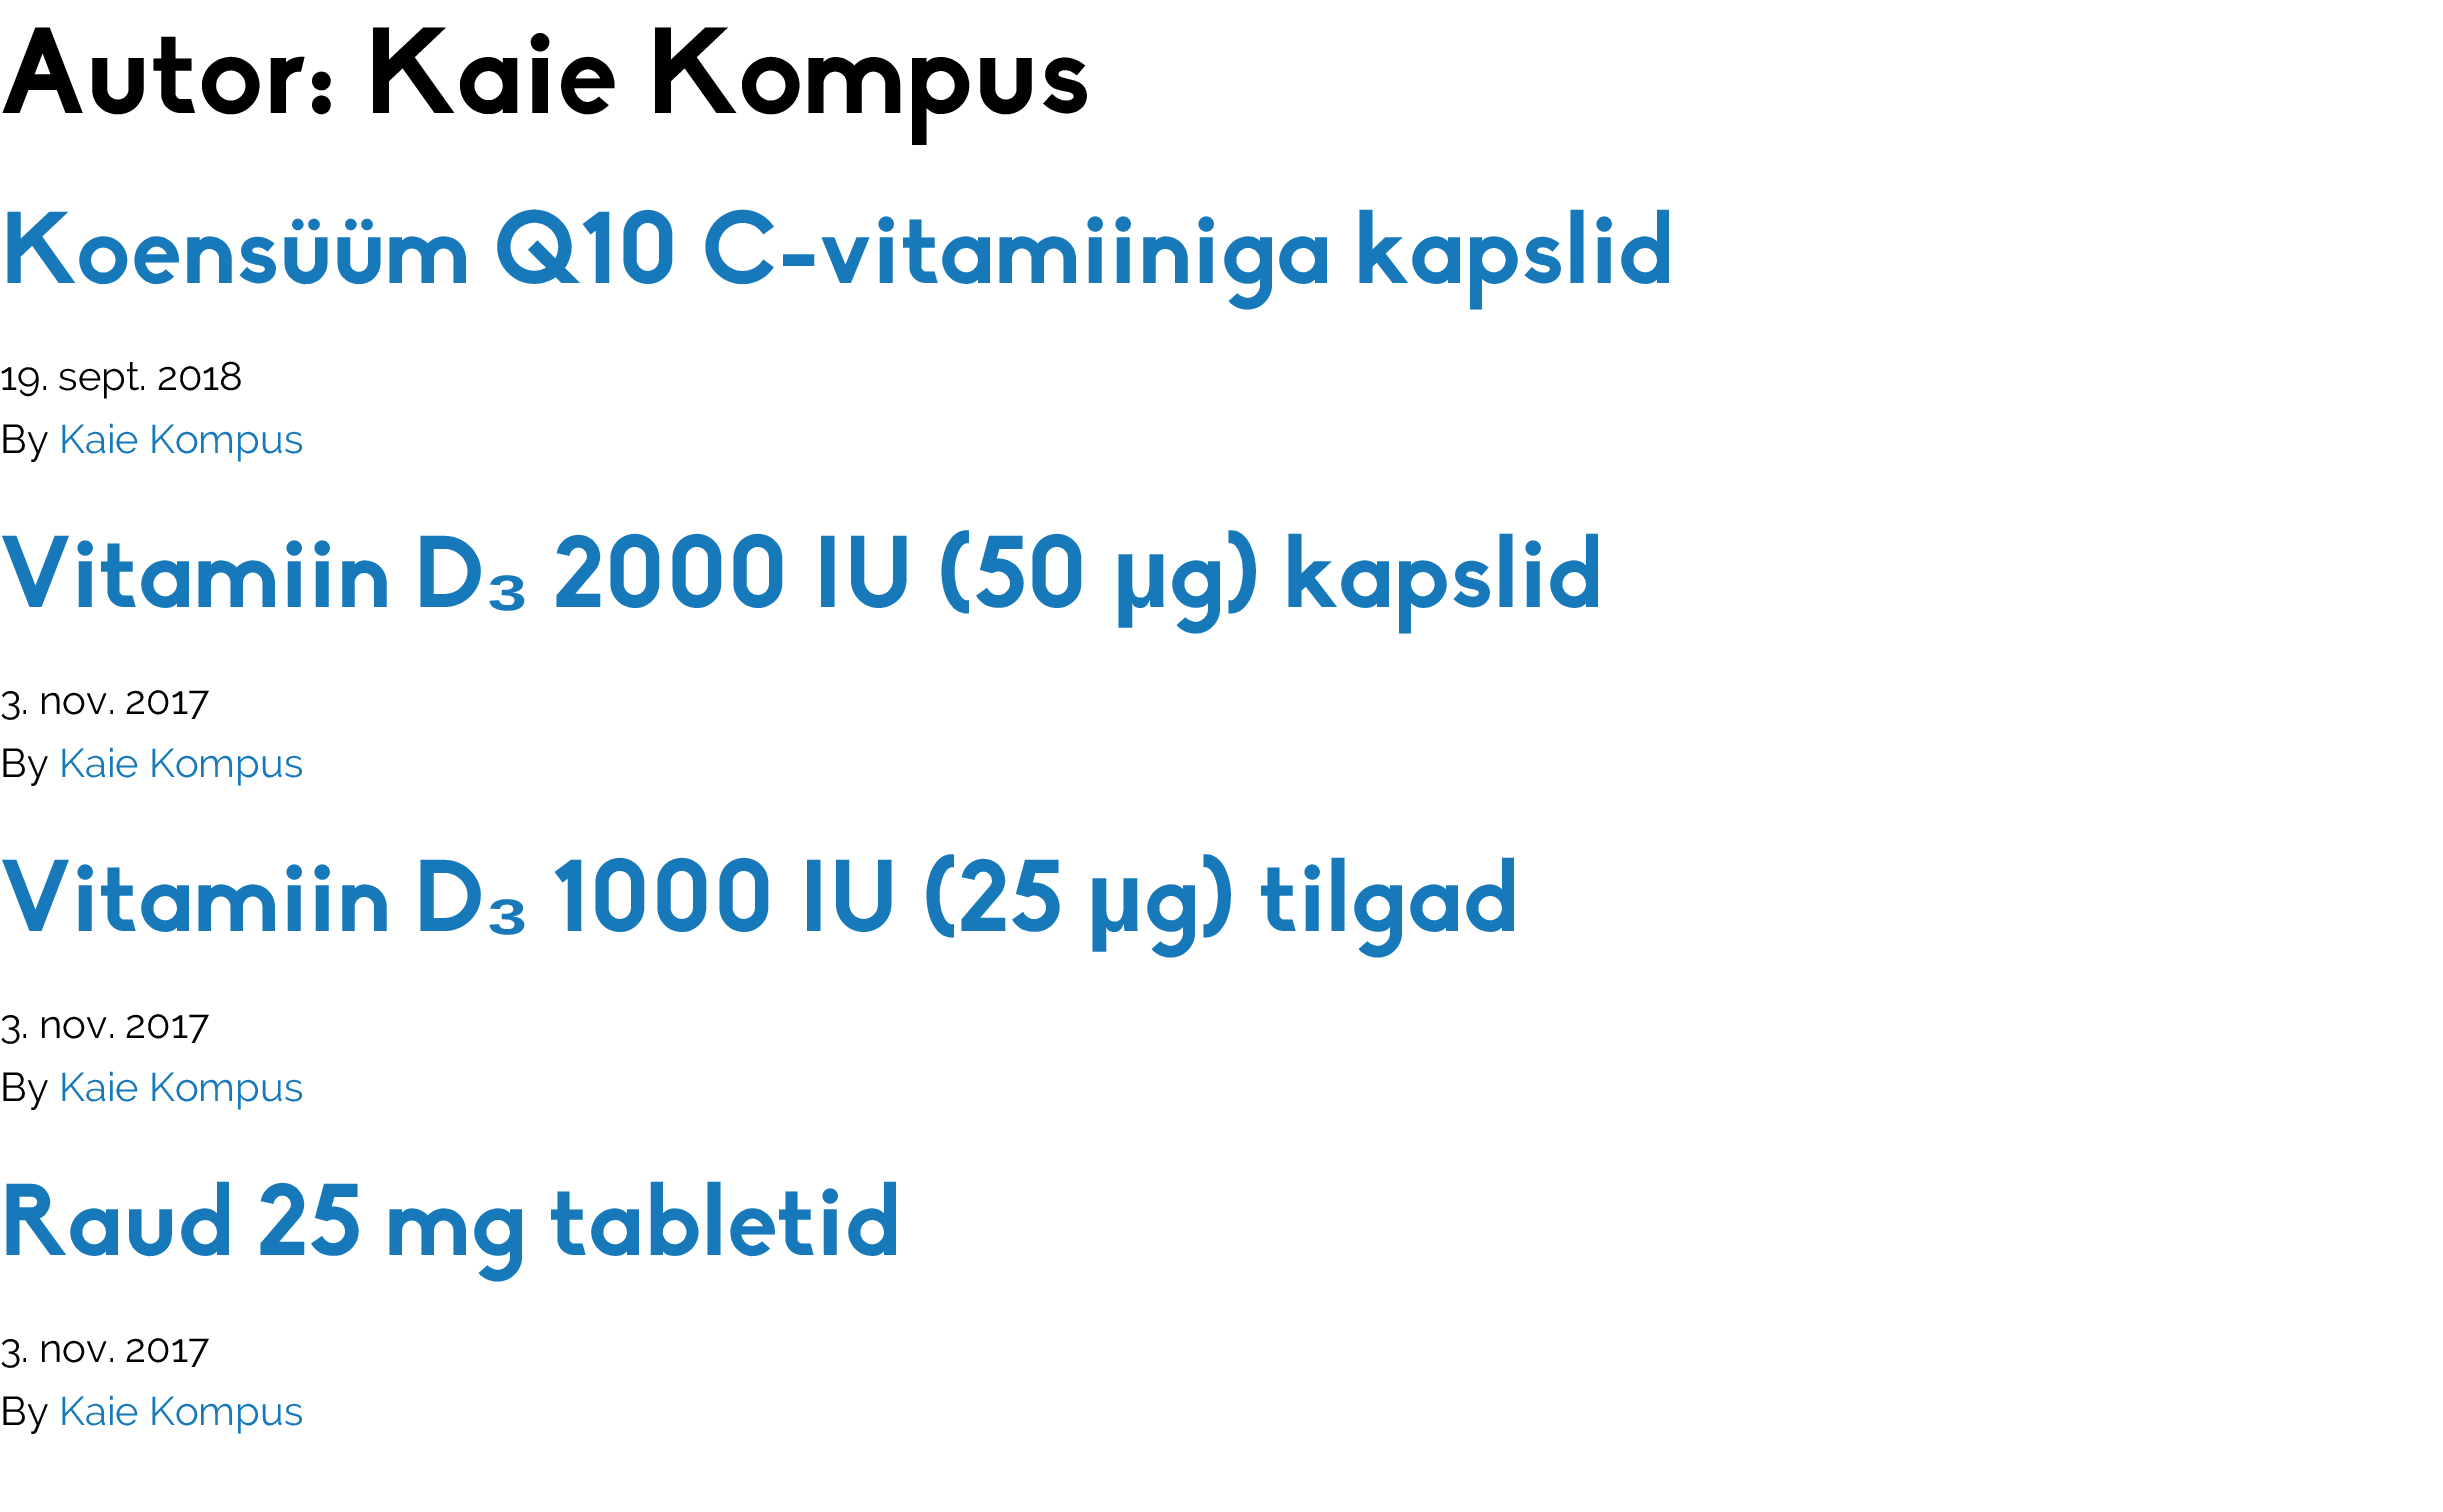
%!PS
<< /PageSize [2443 1512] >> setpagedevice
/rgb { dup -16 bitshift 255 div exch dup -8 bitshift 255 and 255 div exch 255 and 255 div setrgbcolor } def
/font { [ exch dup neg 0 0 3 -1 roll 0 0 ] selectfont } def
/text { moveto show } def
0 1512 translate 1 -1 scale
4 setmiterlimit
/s1 { /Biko-Bold 120 font 16#000000 rgb } def
/s2 { /Biko-Bold 100 font 16#1779BA rgb } def
/s3 { /Raleway-Regular 40 font 16#000000 rgb } def
/s4 { /Raleway-Regular 40 font 16#1779BA rgb } def
/s5 { /LiberationSans-Bold 100 font 16#1779BA rgb } def
16#FFFFFF rgb
0 0 2443 1512 rectfill
s1
(Autor: Kaie Kompus) 0 113 text
s2
(Koensüüm Q10 C-vitamiiniga kapslid) 0 283 text
s3
(19. sept. 2018) 0 390 text
(By) 0 453 text
s4
(Kaie Kompus) 59 453 text
s2
(Vitamiin D) 0 607 text
s5
(₃) 484 607 text
s2
(2000 IU \(50) 553 607 text
s5
(µ) 1112 607 text
s2
(g\) kapslid) 1169 607 text
s3
(3. nov. 2017) 0 714 text
(By) 0 777 text
s4
(Kaie Kompus) 59 777 text
s2
(Vitamiin D) 0 931 text
s5
(₃) 484 931 text
s2
(1000 IU \(25) 553 931 text
s5
(µ) 1086 931 text
s2
(g\) tilgad) 1144 931 text
s3
(3. nov. 2017) 0 1038 text
(By) 0 1101 text
s4
(Kaie Kompus) 59 1101 text
s2
(Raud 25 mg tabletid) 0 1255 text
s3
(3. nov. 2017) 0 1362 text
(By) 0 1425 text
s4
(Kaie Kompus) 59 1425 text
showpage
